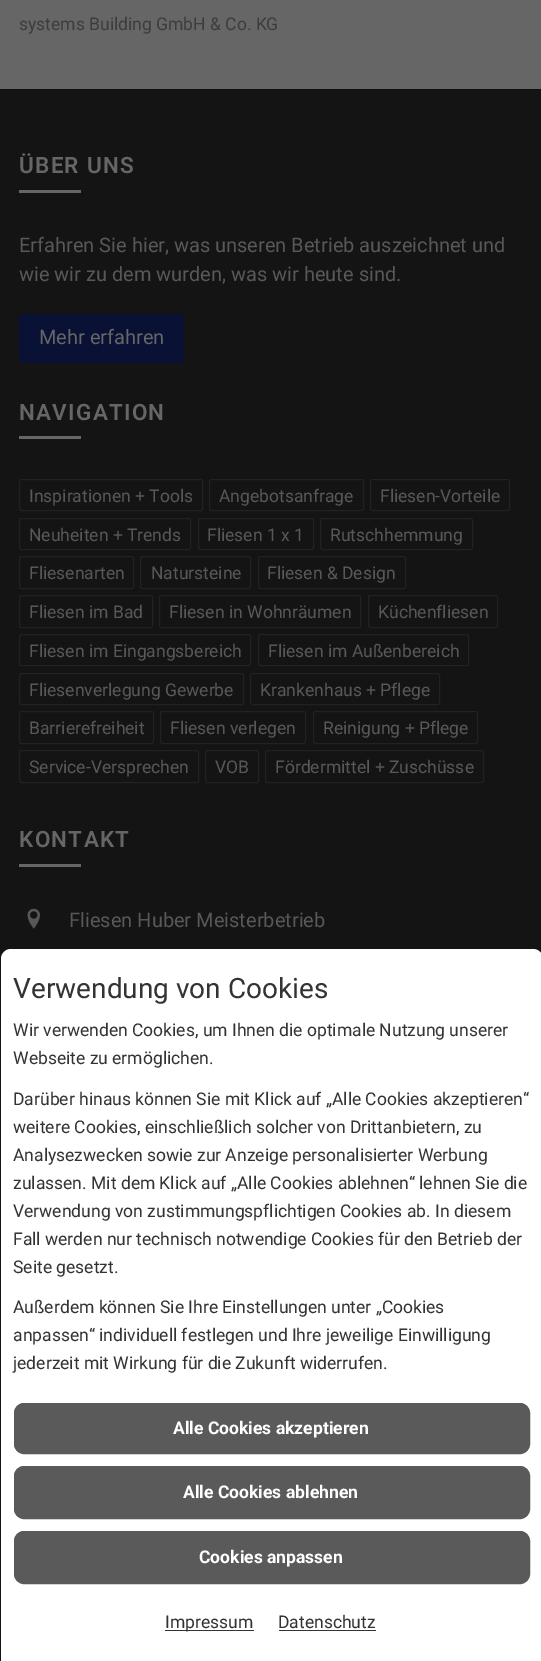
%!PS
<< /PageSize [541 1661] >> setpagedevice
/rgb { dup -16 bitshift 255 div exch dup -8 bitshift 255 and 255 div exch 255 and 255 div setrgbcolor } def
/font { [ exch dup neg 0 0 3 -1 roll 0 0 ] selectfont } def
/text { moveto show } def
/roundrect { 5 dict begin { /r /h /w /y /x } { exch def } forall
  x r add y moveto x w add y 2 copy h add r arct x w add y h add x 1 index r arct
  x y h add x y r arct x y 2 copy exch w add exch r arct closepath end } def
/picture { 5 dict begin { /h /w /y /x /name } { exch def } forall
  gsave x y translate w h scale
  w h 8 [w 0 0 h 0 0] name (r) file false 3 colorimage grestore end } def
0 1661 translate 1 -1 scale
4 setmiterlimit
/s1 { /Roboto-Regular 17.5 font 16#3D3D3D rgb } def
/s2 { /Roboto-Regular 20 font 16#585858 rgb } def
/s3 { /Roboto-Regular 20 font 16#666666 rgb } def
/s4 { /Roboto-Regular 17.5 font 16#585858 rgb } def
/s5 { /Roboto-Regular 28 font 16#333333 rgb } def
/s6 { /Roboto-Regular 17.5 font 16#333333 rgb } def
/s7 { /Roboto-Bold 17.5 font 16#FFFFFF rgb } def
16#666666 rgb
0 0 541 1661 rectfill
s1
(systems Building GmbH & Co. KG) 19 30 text
16#141414 rgb
0 90 541 1571 rectfill
16#0F0F0F rgb
0 89 541 1 rectfill
/Roboto-SemiBold 22.5 font
16#666666 rgb
19 173 moveto 1.25 0 (ÜBER UNS) ashow
19 190 62 3 rectfill
s2
(Erfahren Sie hier, was unseren Betrieb auszeichnet und) 19 252 text
(wie wir zu dem wurden, was wir heute sind.) 19 281 text
16#091134 rgb
19 314 165 49 2.5 roundrect fill
s3
(Mehr erfahren) 39 344 text
/Roboto-SemiBold 22.5 font
19 420 moveto 1.25 0 (NAVIGATION) ashow
19 436 62 3 rectfill
16#222222 rgb
19.5 479.5 183 31 2 roundrect stroke
s4
(Inspirationen + Tools) 29 502 text
16#222222 rgb
209.5 479.5 154 31 2 roundrect stroke
s4
(Angebotsanfrage) 219 502 text
16#222222 rgb
370.5 479.5 139 31 2 roundrect stroke
s4
(Fliesen-Vorteile) 380 502 text
16#222222 rgb
19.5 518.5 171 31 2 roundrect stroke
s4
(Neuheiten + Trends) 29 541 text
16#222222 rgb
198.5 518.5 115 31 2 roundrect stroke
s4
(Fliesen 1 x 1) 207 541 text
16#222222 rgb
320.5 518.5 152 31 2 roundrect stroke
s4
(Rutschhemmung) 330 541 text
16#222222 rgb
19.5 556.5 114 32 2 roundrect stroke
s4
(Fliesenarten) 29 579 text
16#222222 rgb
140.5 556.5 110 32 2 roundrect stroke
s4
(Natursteine) 151 579 text
16#222222 rgb
258.5 556.5 147 32 2 roundrect stroke
s4
(Fliesen & Design) 267 579 text
16#222222 rgb
19.5 595.5 133 32 2 roundrect stroke
s4
(Fliesen im Bad) 29 618 text
16#222222 rgb
159.5 595.5 201 32 2 roundrect stroke
s4
(Fliesen in Wohnräumen) 169 618 text
16#222222 rgb
368.5 595.5 129 32 2 roundrect stroke
s4
(Küchenfliesen) 378 618 text
16#222222 rgb
19.5 634.5 231 31 2 roundrect stroke
s4
(Fliesen im Eingangsbereich) 29 657 text
16#222222 rgb
258.5 634.5 210 31 2 roundrect stroke
s4
(Fliesen im Außenbereich) 268 657 text
16#222222 rgb
19.5 673.5 224 31 2 roundrect stroke
s4
(Fliesenverlegung Gewerbe) 29 696 text
16#222222 rgb
250.5 673.5 189 31 2 roundrect stroke
s4
(Krankenhaus + Pflege) 260 696 text
16#222222 rgb
19.5 711.5 134 32 2 roundrect stroke
s4
(Barrierefreiheit) 29 734 text
16#222222 rgb
160.5 711.5 145 32 2 roundrect stroke
s4
(Fliesen verlegen) 170 734 text
16#222222 rgb
313.5 711.5 164 32 2 roundrect stroke
s4
(Reinigung + Pflege) 323 734 text
16#222222 rgb
19.5 750.5 179 32 2 roundrect stroke
s4
(Service-Versprechen) 29 773 text
16#222222 rgb
205.5 750.5 53 32 2 roundrect stroke
s4
(VOB) 215 773 text
16#222222 rgb
265.5 750.5 218 32 2 roundrect stroke
s4
(Fördermittel + Zuschüsse) 275 773 text
/Roboto-SemiBold 22.5 font
16#666666 rgb
19 847 moveto 1.25 0 (KONTAKT) ashow
19 864 62 3 rectfill
(pic1.raw) 27 908 13 21 picture
s2
(Fliesen Huber Meisterbetrieb) 69 927 text
16#1A1A1A rgb
0 1161 1 1 rectfill
16#FFFFFF rgb
11 949 moveto 533 949 lineto 538.5 949 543 953.5 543 959 curveto 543 1661 lineto 1 1661 lineto 1 959 lineto 1 953.5 5.5 949 11 949 curveto closepath fill
s5
(Verwendung von Cookies) 13 998 text
s6
(Wir verwenden Cookies, um Ihnen die optimale Nutzung unserer) 13 1036 text
(Webseite zu ermöglichen.) 13 1064 text
(Darüber hinaus können Sie mit Klick auf „Alle Cookies akzeptieren“) 13 1105 text
(weitere Cookies, einschließlich solcher von Drittanbietern, zu) 13 1133 text
(Analysezwecken sowie zur Anzeige personalisierter Werbung) 13 1161 text
(zulassen. Mit dem Klick auf „Alle Cookies ablehnen“ lehnen Sie die) 13 1189 text
(Verwendung von zustimmungspflichtigen Cookies ab. In diesem) 13 1217 text
(Fall werden nur technisch notwendige Cookies für den Betrieb der) 13 1245 text
(Seite gesetzt.) 13 1273 text
(Außerdem können Sie Ihre Einstellungen unter „Cookies) 13 1313 text
(anpassen“ individuell festlegen und Ihre jeweilige Einwilligung) 13 1341 text
(jederzeit mit Wirkung für die Zukunft widerrufen.) 13 1369 text
16#5A5A5A rgb
14.5 1403.5 515 50 9.5 roundrect gsave fill grestore
stroke
s7
(Alle Cookies akzeptieren) 173 1434 text
16#5A5A5A rgb
14.5 1466.5 515 52 9.5 roundrect gsave fill grestore
stroke
s7
(Alle Cookies ablehnen) 183 1498 text
16#5A5A5A rgb
14.5 1531.5 515 52 9.5 roundrect gsave fill grestore
stroke
s7
(Cookies anpassen) 199 1563 text
16#333333 rgb
165 1630 89 1 rectfill
s6
(Impressum) 165 1628 text
(Datenschutz) 278 1628 text
279 1630 97 1 rectfill
showpage
